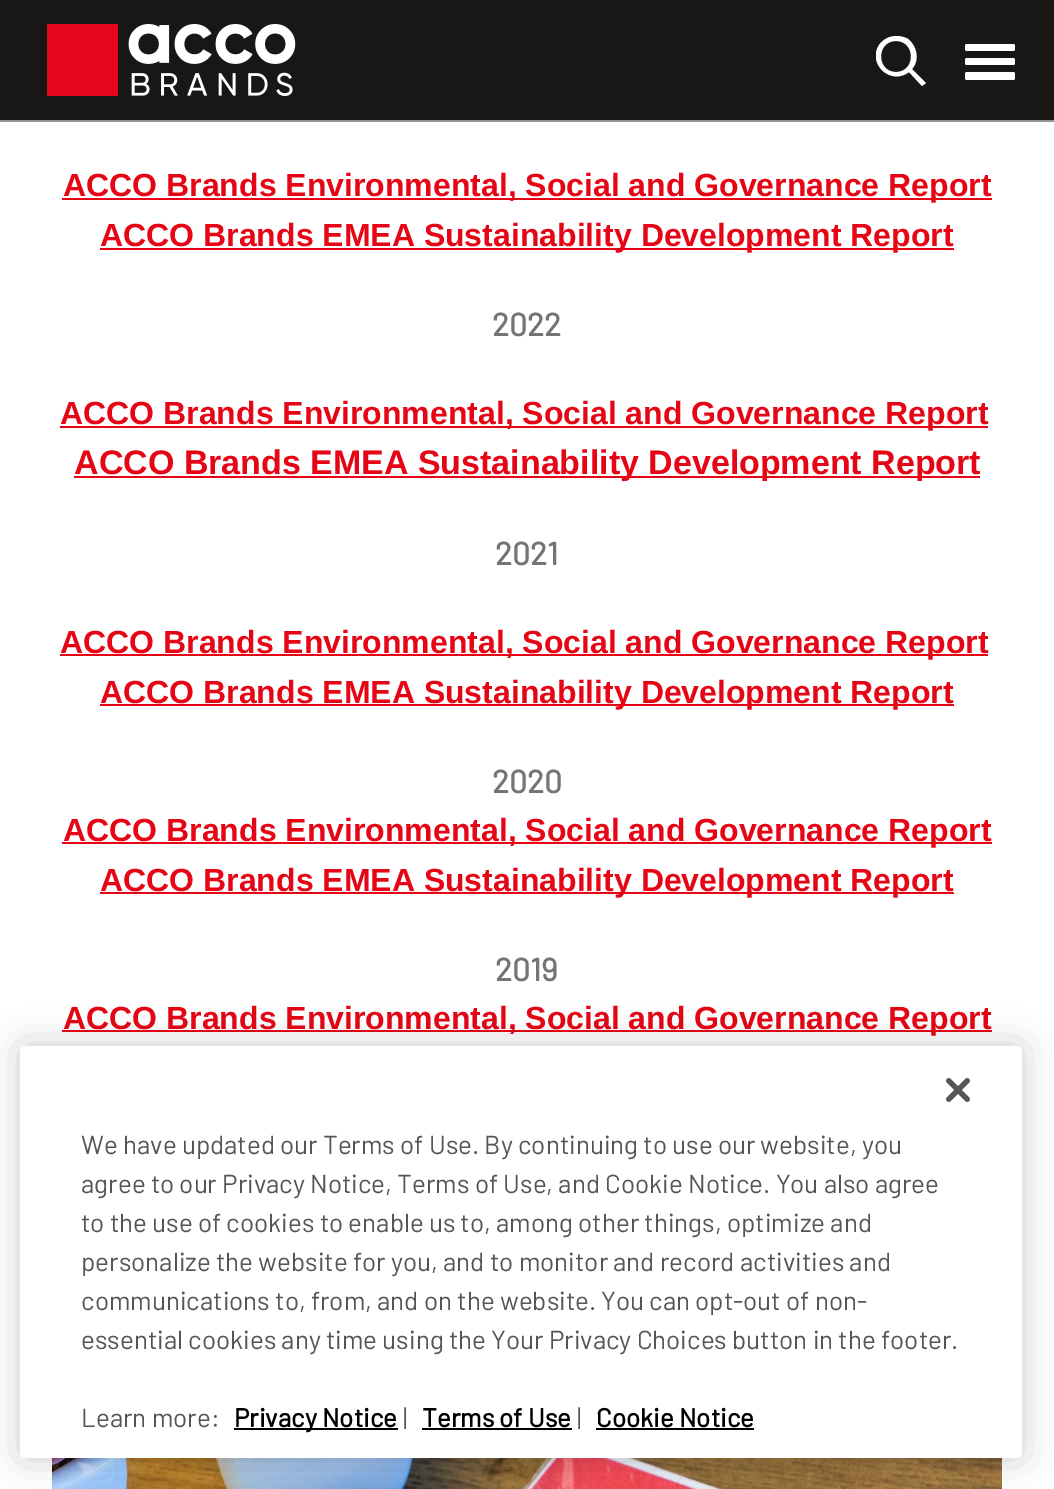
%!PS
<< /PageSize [1054 1489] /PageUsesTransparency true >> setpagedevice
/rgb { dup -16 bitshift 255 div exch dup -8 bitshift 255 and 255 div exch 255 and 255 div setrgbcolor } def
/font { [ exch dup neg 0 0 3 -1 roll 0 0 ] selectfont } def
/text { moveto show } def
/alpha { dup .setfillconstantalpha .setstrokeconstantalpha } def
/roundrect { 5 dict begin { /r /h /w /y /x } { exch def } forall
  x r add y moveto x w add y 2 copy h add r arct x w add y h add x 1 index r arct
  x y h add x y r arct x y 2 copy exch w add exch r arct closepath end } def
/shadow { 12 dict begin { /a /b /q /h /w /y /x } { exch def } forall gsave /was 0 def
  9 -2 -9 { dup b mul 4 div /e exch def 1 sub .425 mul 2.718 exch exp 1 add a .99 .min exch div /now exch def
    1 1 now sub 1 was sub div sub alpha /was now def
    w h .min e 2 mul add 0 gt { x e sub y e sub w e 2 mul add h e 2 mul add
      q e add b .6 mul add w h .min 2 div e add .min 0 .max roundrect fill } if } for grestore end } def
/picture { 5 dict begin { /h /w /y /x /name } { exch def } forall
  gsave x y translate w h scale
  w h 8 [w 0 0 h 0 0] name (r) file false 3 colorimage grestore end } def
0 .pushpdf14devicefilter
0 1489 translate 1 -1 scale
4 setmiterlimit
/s1 { /LiberationSans-Bold 32 font 16#E60514 rgb } def
/s2 { /Barlow-Bold 32 font 16#757374 rgb } def
/s3 { /LiberationSans-Bold 34 font 16#E60514 rgb } def
/s4 { /Barlow-Regular 26 font 16#555555 rgb } def
/s5 { /Barlow-Bold 26 font 16#000000 rgb } def
16#FFFFFF rgb
0 0 1054 1489 rectfill
16#181716 rgb
0 0 1054 120 rectfill
16#949494 rgb
0 120 1054 2 rectfill
(pic1.raw) 47 24 249 72 picture
gsave
876 36 50 50 rectclip
16#FFFFFF rgb
922 86 moveto 909 72 lineto 891 86 867 64 879 45 curveto 882 41 886 38 890 37 curveto 896 35 903 36 908 39 curveto 917 46 920 60 912 69 curveto 926 83 lineto closepath 896 72 moveto 916 72 916 41 896 41 curveto 876 41 876 72 896 72 curveto closepath eofill
grestore
16#FFFFFF rgb
965 44 50 7 2 roundrect fill
965 58 50 7 2 roundrect fill
965 72 50 8 2 roundrect fill
16#E60514 rgb
62 198 930 2 rectfill
s1
(ACCO Brands Environmental, Social and Governance Report) 63 196 text
100 248 854 2 rectfill
(ACCO Brands EMEA Sustainability Development Report) 100 246 text
s2
(2022) 492 336 text
16#E60514 rgb
60 426 928 2 rectfill
s1
(ACCO Brands Environmental, Social and Governance Report) 60 424 text
74 476 906 2 rectfill
s3
(ACCO Brands EMEA Sustainability Development Report) 74 474 text
s2
(2021) 495 565 text
16#E60514 rgb
60 654 928 2 rectfill
s1
(ACCO Brands Environmental, Social and Governance Report) 60 653 text
100 704 854 2 rectfill
(ACCO Brands EMEA Sustainability Development Report) 100 703 text
s2
(2020) 492 793 text
16#E60514 rgb
62 842 930 2 rectfill
s1
(ACCO Brands Environmental, Social and Governance Report) 63 841 text
100 892 854 2 rectfill
(ACCO Brands EMEA Sustainability Development Report) 100 891 text
s2
(2019) 495 981 text
16#E60514 rgb
62 1030 930 2 rectfill
s1
(ACCO Brands Environmental, Social and Governance Report) 63 1029 text
(pic2.raw) 52 1458 950 31 picture
16#000000 rgb
20 1046 1002 412 5 18 0.2 shadow
16#FFFFFF rgb
20 1046 1002 412 5 roundrect fill
(pic3.raw) 946 1078 24 24 picture
s4
(We have updated our Terms of Use. By continuing to use our website, you) 81 1154 text
(agree to our Privacy Notice, Terms of Use, and Cookie Notice. You also agree) 81 1193 text
(to the use of cookies to enable us to, among other things, optimize and) 81 1232 text
(personalize the website for you, and to monitor and record activities and) 81 1271 text
(communications to, from, and on the website.) 81 1310 text
(You can opt-out of non-) 601 1310 text
(essential cookies any time using the Your Privacy Choices button in the footer.) 81 1349 text
(Learn more:) 81 1427 text
16#000000 rgb
234 1428 164 2 rectfill
s5
(Privacy Notice) 234 1427 text
s4
(|) 403 1427 text
s5
(Terms of Use) 422 1427 text
422 1428 150 2 rectfill
s4
(|) 577 1427 text
s5
(Cookie Notice) 596 1427 text
596 1428 158 2 rectfill
.poppdf14devicefilter showpage
